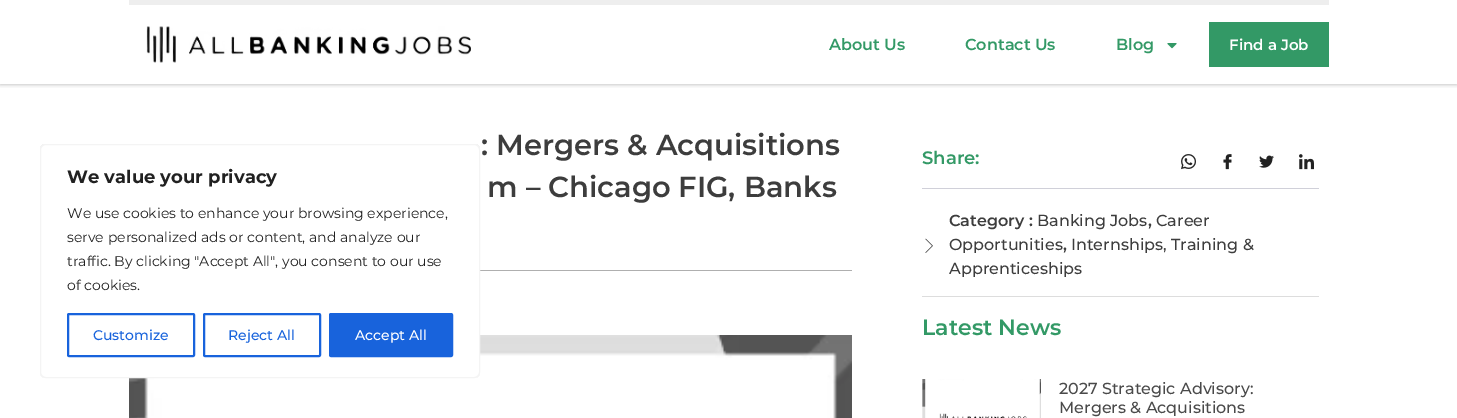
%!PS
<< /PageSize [1457 418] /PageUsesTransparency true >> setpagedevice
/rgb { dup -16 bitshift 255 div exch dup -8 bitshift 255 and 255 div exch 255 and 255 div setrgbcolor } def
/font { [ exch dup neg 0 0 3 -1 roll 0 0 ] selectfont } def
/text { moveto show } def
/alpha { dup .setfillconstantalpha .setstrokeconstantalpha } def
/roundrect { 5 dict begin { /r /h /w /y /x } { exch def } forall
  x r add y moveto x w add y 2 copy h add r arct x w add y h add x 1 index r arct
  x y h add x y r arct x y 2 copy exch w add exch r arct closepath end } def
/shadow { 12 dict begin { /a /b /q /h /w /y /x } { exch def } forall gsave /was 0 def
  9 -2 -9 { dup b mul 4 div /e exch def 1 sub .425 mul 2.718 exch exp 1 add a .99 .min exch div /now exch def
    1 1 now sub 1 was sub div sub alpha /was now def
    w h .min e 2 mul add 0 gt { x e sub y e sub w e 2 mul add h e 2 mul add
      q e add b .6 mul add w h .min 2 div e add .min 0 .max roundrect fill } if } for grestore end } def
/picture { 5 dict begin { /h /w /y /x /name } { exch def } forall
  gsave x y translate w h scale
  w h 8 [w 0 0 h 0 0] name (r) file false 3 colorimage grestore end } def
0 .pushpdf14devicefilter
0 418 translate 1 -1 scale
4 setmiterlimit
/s1 { /Montserrat-Bold 18 font 16#212121 rgb } def
/s2 { /Montserrat-Regular 14 font 16#212121 rgb } def
/s3 { /Montserrat-Medium 14 font 16#1863DC rgb } def
/s4 { /Montserrat-Medium 14 font 16#FFFFFF rgb } def
/s5 { /Montserrat-SemiBold 16 font 16#339966 rgb } def
/s6 { /Montserrat-SemiBold 15 font 16#FFFFFF rgb } def
/s7 { /Montserrat-SemiBold 29 font 16#3D3D3D rgb } def
/s8 { /Montserrat-SemiBold 18 font 16#339966 rgb } def
/s9 { /Montserrat-SemiBold 16 font 16#3D3D3D rgb } def
/s10 { /Montserrat-Medium 16 font 16#3D3D3D rgb } def
/s11 { /Montserrat-SemiBold 22 font 16#339966 rgb } def
/s12 { /Montserrat-Medium 16 font 16#4A4A4A rgb } def
16#FFFFFF rgb
0 0 1457 418 rectfill
16#AFAFAF rgb
480 270 372 1 rectfill
(pic3.raw) 129 335 723 83 picture
gsave
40 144 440 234 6 roundrect clip newpath
16#ACABAB rgb
40 143 440 234 6 5 0.3 shadow
grestore
16#FFFFFF rgb
40.5 144.5 439 233 5.5 roundrect gsave fill grestore
16#F4F4F4 rgb
stroke
s1
(We value your privacy) 67 183 text
s2
(We use cookies to enhance your browsing experience,) 67 218 text
(serve personalized ads or content, and analyze our) 67 242 text
(traffic. By clicking "Accept All", you consent to our use) 67 266 text
(of cookies.) 67 290 text
16#1863DC rgb
2 setlinewidth
68 314 126 42 1 roundrect stroke
s3
(Customize) 93 340 text
204 314 116 42 1 roundrect stroke
(Reject All) 228 340 text
330 314 122 42 1 roundrect gsave fill grestore
stroke
s4
(Accept All) 355 340 text
gsave
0 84 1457 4 rectclip
16#616161 rgb
0 0 1457 84 0 2.5 0.5 shadow
grestore
16#EEEEEE rgb
129 0 1200 5 rectfill
(pic1.raw) 146 26 325 37 picture
s5
(About Us) 829 50 text
(Contact Us) 965 50 text
(Blog) 1116 50 text
(pic2.raw) 1167 43 10 6 picture
1209 22 120 45 rectfill
s6
(Find a Job) 1229 50 text
s7
(: Mergers & Acquisitions) 481 155 text
(m – Chicago FIG, Banks) 487 197 text
16#D0D0D9 rgb
922 188 397 1 rectfill
s8
(Share:) 922 164 text
(pic4.raw) 1181 154 15 16 picture
(pic5.raw) 1223 154 9 16 picture
(pic6.raw) 1259 155 15 13 picture
(pic7.raw) 1299 154 15 16 picture
16#DDDDDD rgb
922 296 397 1 rectfill
(pic8.raw) 925 238 8 15 picture
s9
(Category :) 949 226 text
s10
(Banking Jobs) 1037 226 text
s9
(,) 1148 226 text
s10
(Career) 1156 226 text
(Opportunities) 949 250 text
s9
(,) 1063 250 text
s10
(Internships, Training &) 1071 250 text
(Apprenticeships) 949 274 text
s11
(Latest News) 922 335 text
(pic9.raw) 922 379 119 39 picture
s12
(2027 Strategic Advisory:) 1059 394 text
(Mergers & Acquisitions) 1059 413 text
.poppdf14devicefilter showpage
